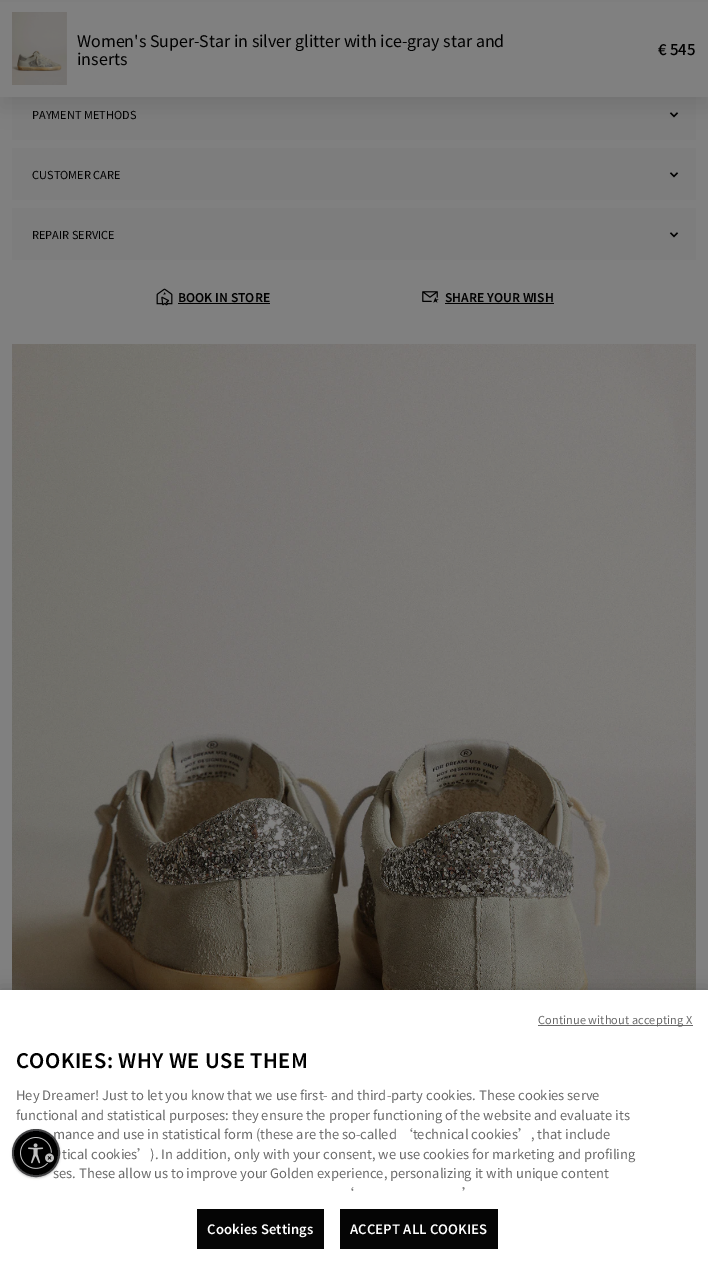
%!PS
<< /PageSize [708 1281] /PageUsesTransparency true >> setpagedevice
/rgb { dup -16 bitshift 255 div exch dup -8 bitshift 255 and 255 div exch 255 and 255 div setrgbcolor } def
/font { [ exch dup neg 0 0 3 -1 roll 0 0 ] selectfont } def
/text { moveto show } def
/alpha { dup .setfillconstantalpha .setstrokeconstantalpha } def
/circle { newpath 0 360 arc closepath } def
/roundrect { 5 dict begin { /r /h /w /y /x } { exch def } forall
  x r add y moveto x w add y 2 copy h add r arct x w add y h add x 1 index r arct
  x y h add x y r arct x y 2 copy exch w add exch r arct closepath end } def
/shadow { 12 dict begin { /a /b /q /h /w /y /x } { exch def } forall gsave /was 0 def
  9 -2 -9 { dup b mul 4 div /e exch def 1 sub .425 mul 2.718 exch exp 1 add a .99 .min exch div /now exch def
    1 1 now sub 1 was sub div sub alpha /was now def
    w h .min e 2 mul add 0 gt { x e sub y e sub w e 2 mul add h e 2 mul add
      q e add b .6 mul add w h .min 2 div e add .min 0 .max roundrect fill } if } for grestore end } def
/picture { 5 dict begin { /h /w /y /x /name } { exch def } forall
  gsave x y translate w h scale
  w h 8 [w 0 0 h 0 0] name (r) file false 3 colorimage grestore end } def
0 .pushpdf14devicefilter
0 1281 translate 1 -1 scale
4 setmiterlimit
/s1 { /NotoSansSC-Regular 16 font 16#000000 rgb } def
/s2 { /NotoSansSC-Medium 15 font 16#000000 rgb } def
/s3 { /NotoSansSC-Regular 11 font 16#000000 rgb } def
/s4 { /NotoSansSC-SemiBold 12 font 16#000000 rgb } def
/s5 { /NotoSansSC-Regular 13 font 16#696969 rgb } def
16#808080 rgb
0 0 708 1281 rectfill
16#7D7D7D rgb
12 97 684 43 rectfill
(pic2.raw) 669 112 10 6 picture
16#000000 rgb
1 10 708 97 0 10 0.1 shadow
16#808080 rgb
0 2 708 95 rectfill
(pic1.raw) 12 12 55 73 picture
s1
(Women's Super-Star in silver glitter with ice-gray star and) 77 47 text
(inserts) 77 65 text
s2
(€ 545) 658 55 text
s3
(PAYMENT METHODS) 32 119 text
16#7D7D7D rgb
12 148 684 52 rectfill
s3
(CUSTOMER CARE) 32 179 text
(pic2.raw) 669 172 10 6 picture
16#7D7D7D rgb
12 208 684 52 rectfill
s3
(REPAIR SERVICE) 32 239 text
(pic2.raw) 669 232 10 6 picture
(pic3.raw) 156 288 17 18 picture
s4
(BOOK IN STORE) 178 302 text
178 303 92 1 rectfill
(pic4.raw) 422 291 17 12 picture
(SHARE YOUR WISH) 445 302 text
445 303 109 1 rectfill
(pic5.raw) 12 344 684 646 picture
0 990 708 291 0 9 0.2 shadow
16#FFFFFF rgb
0 990 708 291 rectfill
16#696969 rgb
538 1025 155 1 rectfill
/NotoSansSC-Regular 11 font
538 1024 moveto 0.1 0 (Continue without accepting X) ashow
/NotoSansSC-SemiBold 20 font
16#000000 rgb
16 1068 moveto 0.4 0 (COOKIES: WHY WE USE THEM) ashow
s5
(Hey Dreamer! Just to let you know that we use first- and third-party cookies. These cookies serve) 16 1100 text
(functional and statistical purposes: they ensure the proper functioning of the website and evaluate its) 16 1120 text
(mance and use in statistical form \(these are the so-called ‘technical cookies’, that include) 53 1139 text
(tical cookies’\). In addition, only with your consent, we use cookies for marketing and profiling) 62 1159 text
(ses. These allow us to improve your Golden experience, personalizing it with unique content) 53 1178 text
(‘) 341 1198 text
(’) 462 1198 text
16#050505 rgb
197 1209 127 40 rectfill
/NotoSansSC-SemiBold 13 font
16#FFFFFF rgb
207 1234 moveto 0.1 0 (Cookies Settings) ashow
16#050505 rgb
340 1209 158 40 rectfill
16#FFFFFF rgb
350 1234 moveto 0.1 0 (ACCEPT ALL COOKIES) ashow
16#000000 rgb
12 1130 48 48 24 1 0.24 shadow
16#444446 rgb
2 setlinewidth
36 1153 23 circle stroke
gsave
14 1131 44 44 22 roundrect clip newpath
16#000000 rgb
14 1132 44 44 22 1 0.24 shadow
grestore
16#000000 rgb
36 1153 22 circle fill
(pic6.raw) 20 1137 34 32 picture
.poppdf14devicefilter showpage
